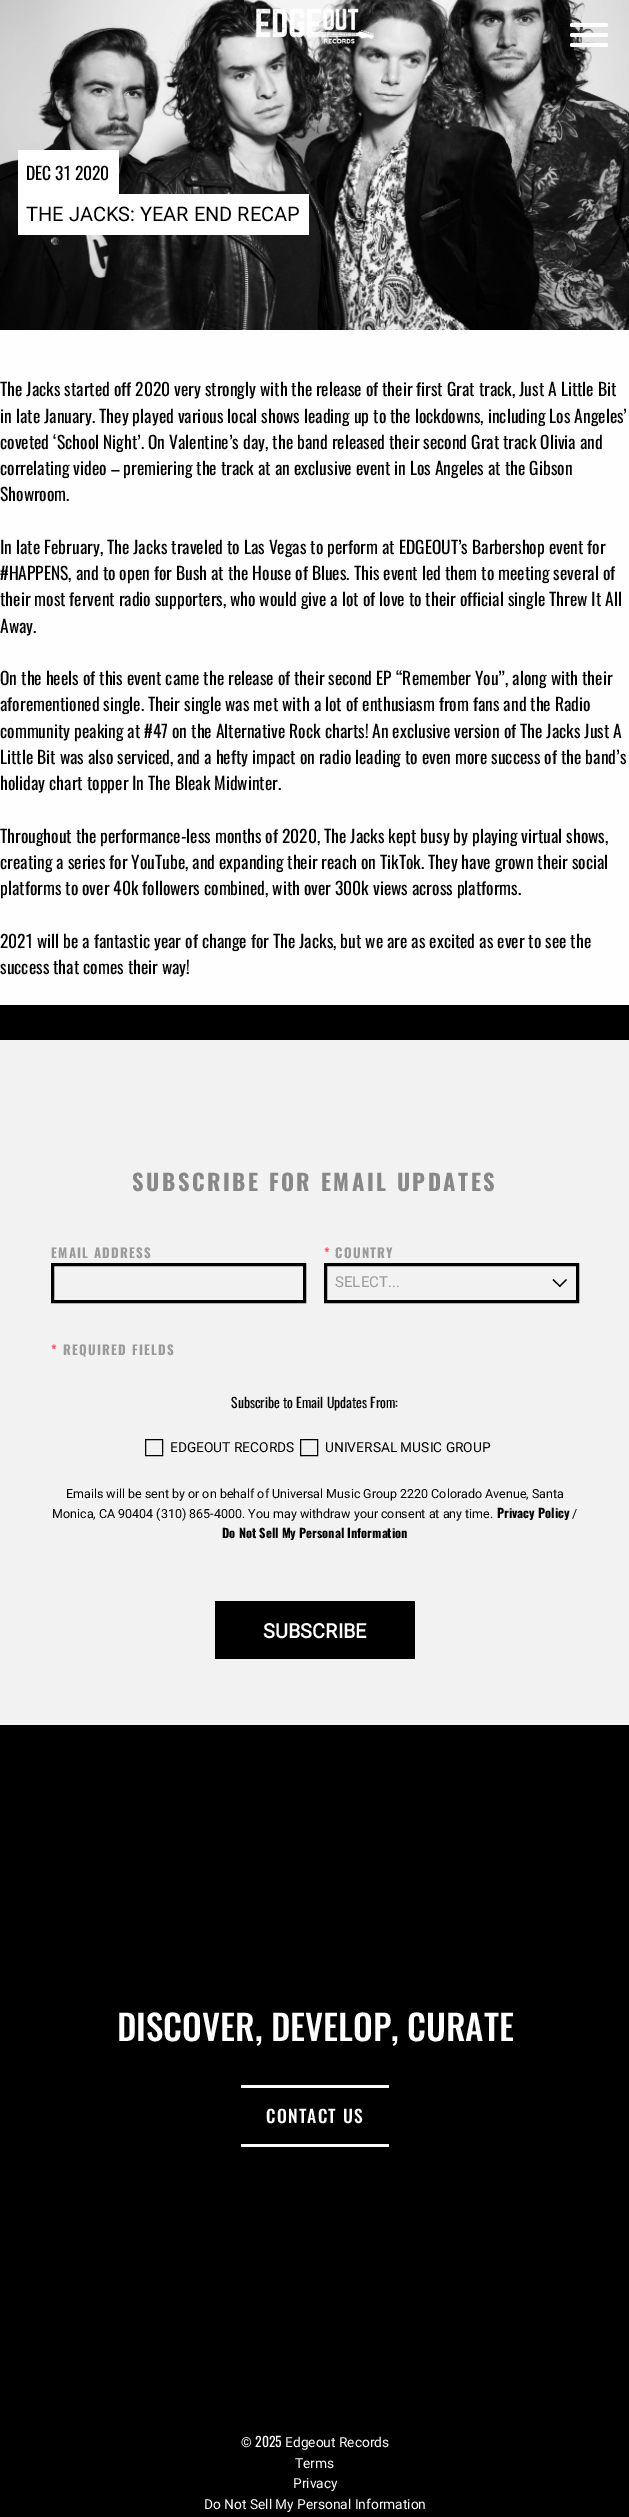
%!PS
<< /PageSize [629 2517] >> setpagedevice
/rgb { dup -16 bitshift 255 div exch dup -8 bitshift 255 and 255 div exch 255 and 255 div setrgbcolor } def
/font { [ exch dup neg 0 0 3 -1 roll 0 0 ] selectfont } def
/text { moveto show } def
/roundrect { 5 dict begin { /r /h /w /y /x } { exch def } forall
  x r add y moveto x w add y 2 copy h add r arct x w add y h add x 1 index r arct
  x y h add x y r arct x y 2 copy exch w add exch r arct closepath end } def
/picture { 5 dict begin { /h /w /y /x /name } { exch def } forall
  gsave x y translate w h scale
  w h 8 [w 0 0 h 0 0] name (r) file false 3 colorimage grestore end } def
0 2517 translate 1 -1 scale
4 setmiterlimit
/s1 { /Oswald-Regular 17.5 font 16#000000 rgb } def
/s2 { /Roboto-Regular 20 font 16#000000 rgb } def
/s3 { /Roboto-Regular 15 font 16#9B9B9B rgb } def
/s4 { /Oswald-Regular 13.75 font 16#000000 rgb } def
/s5 { /Roboto-Regular 13.75 font 16#000000 rgb } def
/s6 { /Roboto-Regular 12.5 font 16#000000 rgb } def
/s7 { /Oswald-Bold 12.5 font 16#000000 rgb } def
/s8 { /Roboto-Bold 20 font 16#FFFFFF rgb } def
/s9 { /Oswald-Medium 35 font 16#FFFFFF rgb } def
/s10 { /Roboto-Regular 13.75 font 16#FFFFFF rgb } def
/s11 { /Oswald-Regular 13.75 font 16#FFFFFF rgb } def
16#000000 rgb
0 0 629 2517 rectfill
(pic2.raw) 0 0 629 330 picture
(pic1.raw) 256 8 118 36 picture
16#FFFFFF rgb
570 23 38 4 2 roundrect fill
570 33 38 4 2 roundrect fill
570 43 38 4 2 roundrect fill
16#FEFEFE rgb
0 330 629 675 rectfill
16#FFFFFF rgb
18 150 101 44 rectfill
s1
(DEC 31 2020) 26 180 text
16#FFFFFF rgb
18 194 291 41 rectfill
s2
(THE JACKS: YEAR END RECAP) 26 221 text
s1
(The Jacks started off 2020 very strongly with the release of their first Grat track, Just A Little Bit) 0 396 text
(in late January. They played various local shows leading up to the lockdowns, including Los Angeles’) 0 423 text
(coveted ‘School Night’. On Valentine’s day, the band released their second Grat track Olivia and) 0 449 text
(correlating video – premiering the track at an exclusive event in Los Angeles at the Gibson) 0 475 text
(Showroom.) 0 501 text
(In late February, The Jacks traveled to Las Vegas to perform at EDGEOUT’s Barbershop event for) 0 554 text
(#HAPPENS, and to open for Bush at the House of Blues. This event led them to meeting several of) 0 580 text
(their most fervent radio supporters, who would give a lot of love to their official single Threw It All) 0 606 text
(Away.) 0 633 text
(On the heels of this event came the release of their second EP “Remember You”, along with their) 0 685 text
(aforementioned single. Their single was met with a lot of enthusiasm from fans and the Radio) 0 711 text
(community peaking at #47 on the Alternative Rock charts! An exclusive version of The Jacks Just A) 0 738 text
(Little Bit was also serviced, and a hefty impact on radio leading to even more success of the band’s) 0 764 text
(holiday chart topper In The Bleak Midwinter.) 0 790 text
(Throughout the performance-less months of 2020, The Jacks kept busy by playing virtual shows,) 0 843 text
(creating a series for YouTube, and expanding their reach on TikTok. They have grown their social) 0 869 text
(platforms to over 40k followers combined, with over 300k views across platforms.) 0 895 text
(2021 will be a fantastic year of change for The Jacks, but we are as excited as ever to see the) 0 948 text
(success that comes their way!) 0 974 text
16#F2F2F2 rgb
0 1040 629 685 rectfill
/Oswald-Bold 22.5 font
16#888888 rgb
132 1191 moveto 2.5 0 (SUBSCRIBE FOR EMAIL UPDATES) ashow
/Oswald-Bold 13.1 font
16#9B9B9B rgb
51 1258 moveto 1.25 0 (EMAIL ADDRESS) ashow
16#000000 rgb
3 setlinewidth
52.5 1264.5 252 37 rectstroke
16#FE5769 rgb
324 1258 moveto 1.25 0 (*) ashow
16#9B9B9B rgb
335 1258 moveto 1.25 0 (COUNTRY) ashow
16#000000 rgb
325.5 1264.5 252 37 rectstroke
s3
(SELECT...) 335 1287 text
16#000000 rgb
566 1279 moveto 567 1280 lineto 560 1287 lineto 559 1286 lineto closepath fill
553.5 1279 moveto 560.5 1286 lineto 560 1287 lineto 552.5 1280 lineto closepath fill
/Oswald-Bold 13.1 font
16#FE5769 rgb
51 1355 moveto 1.25 0 (*) ashow
16#9B9B9B rgb
63 1355 moveto 1.25 0 (REQUIRED FIELDS) ashow
s4
(Subscribe to Email Updates From:) 231 1408 text
1 setlinewidth
145.5 1439.5 17 16 rectstroke
s5
(EDGEOUT RECORDS) 170 1452 text
300.5 1439.5 17 16 rectstroke
(UNIVERSAL MUSIC GROUP) 325 1452 text
s6
(Emails will be sent by or on behalf of Universal Music Group 2220 Colorado Avenue, Santa) 66 1498 text
(Monica, CA 90404 \(310\) 865-4000. You may withdraw your consent at any time.) 52 1518 text
s7
(Privacy Policy) 497 1518 text
s6
(/) 572 1518 text
s7
(Do Not Sell My Personal Information) 222 1538 text
215 1601 200 58 rectfill
s8
(SUBSCRIBE) 263 1638 text
s9
(DISCOVER, DEVELOP, CURATE) 117 2041 text
/Oswald-Medium 17.5 font
266 2123 moveto 1.25 0 (CONTACT US) ashow
241 2085 148 3 rectfill
241 2144 148 3 rectfill
s10
(©) 241 2447 text
s11
(2025) 255 2447 text
s10
(Edgeout Records) 285 2447 text
(Terms) 295 2468 text
(Privacy) 293 2488 text
(Do Not Sell My Personal Information) 204 2509 text
showpage
